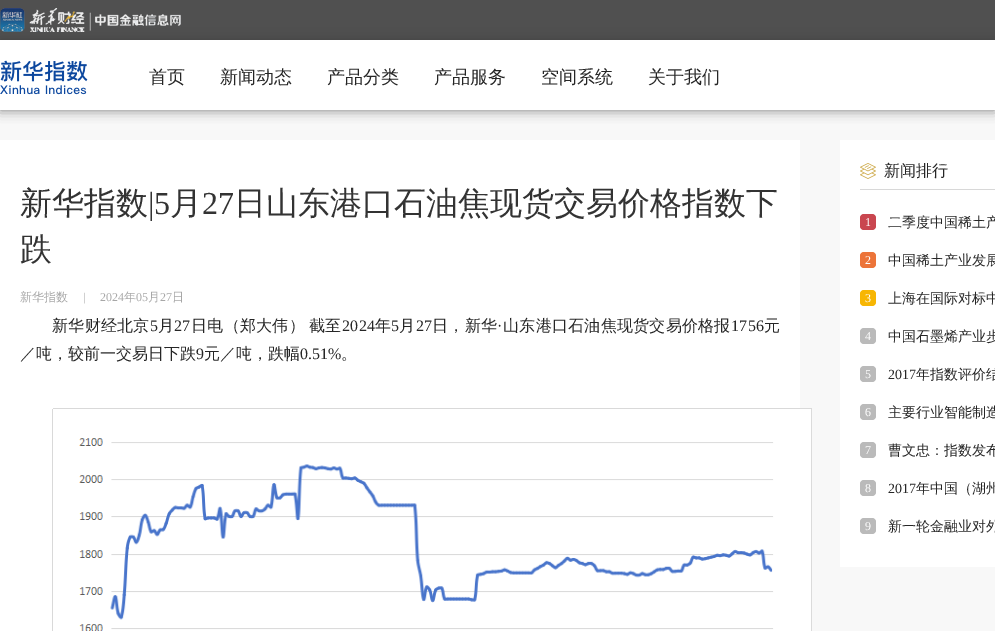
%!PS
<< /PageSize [995 631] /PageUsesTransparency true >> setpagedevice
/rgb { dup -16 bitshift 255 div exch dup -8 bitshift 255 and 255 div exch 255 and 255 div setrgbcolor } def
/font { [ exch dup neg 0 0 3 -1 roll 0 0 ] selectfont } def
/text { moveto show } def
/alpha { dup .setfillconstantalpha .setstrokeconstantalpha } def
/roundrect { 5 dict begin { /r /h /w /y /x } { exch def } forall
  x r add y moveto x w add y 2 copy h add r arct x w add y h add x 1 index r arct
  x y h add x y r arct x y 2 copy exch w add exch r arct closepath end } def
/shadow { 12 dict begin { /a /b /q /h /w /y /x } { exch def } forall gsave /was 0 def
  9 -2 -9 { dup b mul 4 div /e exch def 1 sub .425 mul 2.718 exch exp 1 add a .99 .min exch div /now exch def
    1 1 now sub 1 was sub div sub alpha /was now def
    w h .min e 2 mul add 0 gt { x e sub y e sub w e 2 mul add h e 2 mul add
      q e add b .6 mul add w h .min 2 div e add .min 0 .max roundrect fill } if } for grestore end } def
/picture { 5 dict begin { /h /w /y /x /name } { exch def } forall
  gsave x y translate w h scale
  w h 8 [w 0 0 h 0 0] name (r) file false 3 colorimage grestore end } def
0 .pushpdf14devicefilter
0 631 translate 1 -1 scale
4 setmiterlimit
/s1 { /WenQuanYiZenHei-Medium 18 font 16#262626 rgb } def
/s2 { /WenQuanYiZenHei-Medium 32 font 16#333333 rgb } def
/s3 { /LiberationSerif-Regular 32 font 16#333333 rgb } def
/s4 { /WenQuanYiZenHei-Medium 12 font 16#A7A7A7 rgb } def
/s5 { /LiberationSerif-Regular 12 font 16#A7A7A7 rgb } def
/s6 { /WenQuanYiZenHei-Medium 16 font 16#262626 rgb } def
/s7 { /LiberationSerif-Regular 16 font 16#262626 rgb } def
/s8 { /LiberationSerif-Regular 12 font 16#FFFFFF rgb } def
/s9 { /WenQuanYiZenHei-Medium 14 font 16#262626 rgb } def
/s10 { /LiberationSerif-Regular 14 font 16#262626 rgb } def
16#F8F8F8 rgb
0 0 995 631 rectfill
16#000000 rgb
0 40 995 70 0 6 0.5 shadow
0.89 alpha
16#3B3B3B rgb
0 0 995 40 rectfill
1 alpha
(pic1.raw) 0 8 181 24 picture
16#FFFFFF rgb
0 40 995 70 rectfill
(pic2.raw) 0 60 88 35 picture
s1
(首页) 149 83 text
(新闻动态) 220 83 text
(产品分类) 327 83 text
(产品服务) 434 83 text
(空间系统) 541 83 text
(关于我们) 648 83 text
16#FFFFFF rgb
0 140 800 491 rectfill
s2
(新华指数) 20 214 text
s3
(|5) 148 214 text
s2
(月) 170 214 text
s3
(27) 202 214 text
s2
(日山东港口石油焦现货交易价格指数下) 234 214 text
(跌) 20 260 text
s4
(新华指数) 20 301 text
s5
(|) 83 301 text
(2024) 100 301 text
s4
(年) 124 301 text
s5
(05) 136 301 text
s4
(月) 148 301 text
s5
(27) 160 301 text
s4
(日) 172 301 text
/WenQuanYiZenHei-Medium 16 font
16#262626 rgb
52 331 moveto 0.25 0 (新华财经北京) ashow
/LiberationSerif-Regular 16 font
150 331 moveto 0.25 0 (5) ashow
/WenQuanYiZenHei-Medium 16 font
158 331 moveto 0.25 0 (月) ashow
/LiberationSerif-Regular 16 font
174 331 moveto 0.25 0 (27) ashow
/WenQuanYiZenHei-Medium 16 font
191 331 moveto -1 0 32 0.25 0 (日电（郑大伟） 截至) awidthshow
/LiberationSerif-Regular 16 font
342 331 moveto 0.25 0 (2024) ashow
/WenQuanYiZenHei-Medium 16 font
375 331 moveto 0.25 0 (年) ashow
/LiberationSerif-Regular 16 font
391 331 moveto 0.25 0 (5) ashow
/WenQuanYiZenHei-Medium 16 font
399 331 moveto 0.25 0 (月) ashow
/LiberationSerif-Regular 16 font
416 331 moveto 0.25 0 (27) ashow
/WenQuanYiZenHei-Medium 16 font
432 331 moveto 0.25 0 (日，新华) ashow
/LiberationSerif-Regular 16 font
497 331 moveto 0.25 0 (·) ashow
/WenQuanYiZenHei-Medium 16 font
503 331 moveto 0.25 0 (山东港口石油焦现货交易价格报) ashow
/LiberationSerif-Regular 16 font
731 331 moveto 0.25 0 (1756) ashow
/WenQuanYiZenHei-Medium 16 font
764 331 moveto 0.25 0 (元) ashow
(／吨，较前一交易日下跌) 20 359 text
s7
(9) 196 359 text
s6
(元／吨，跌幅) 204 359 text
s7
(0.51%) 300 359 text
s6
(。) 341 359 text
(pic3.raw) 52 408 760 223 picture
16#FFFFFF rgb
840 140 155 427 rectfill
16#D8D8D8 rgb
860 189 135 1 rectfill
(pic4.raw) 860 163 16 16 picture
s6
(新闻排行) 884 176 text
16#C9464F rgb
860 214 16 16 4 roundrect fill
s8
(1) 865 226 text
s9
(二季度中国稀土产) 888 227 text
16#EC7439 rgb
860 252 16 16 4 roundrect fill
s8
(2) 865 264 text
s9
(中国稀土产业发展) 888 265 text
16#F7B603 rgb
860 290 16 16 4 roundrect fill
s8
(3) 865 302 text
s9
(上海在国际对标中) 888 303 text
16#BABABA rgb
860 328 16 16 4 roundrect fill
s8
(4) 865 340 text
s9
(中国石墨烯产业步) 888 341 text
16#BABABA rgb
860 366 16 16 4 roundrect fill
s8
(5) 865 378 text
s10
(2017) 888 379 text
s9
(年指数评价结) 916 379 text
16#BABABA rgb
860 404 16 16 4 roundrect fill
s8
(6) 865 416 text
s9
(主要行业智能制造) 888 417 text
16#BABABA rgb
860 442 16 16 4 roundrect fill
s8
(7) 865 454 text
s9
(曹文忠：指数发布) 888 455 text
16#BABABA rgb
860 480 16 16 4 roundrect fill
s8
(8) 865 492 text
s10
(2017) 888 493 text
s9
(年中国（湖州) 916 493 text
16#BABABA rgb
860 518 16 16 4 roundrect fill
s8
(9) 865 530 text
s9
(新一轮金融业对外) 888 531 text
.poppdf14devicefilter showpage
